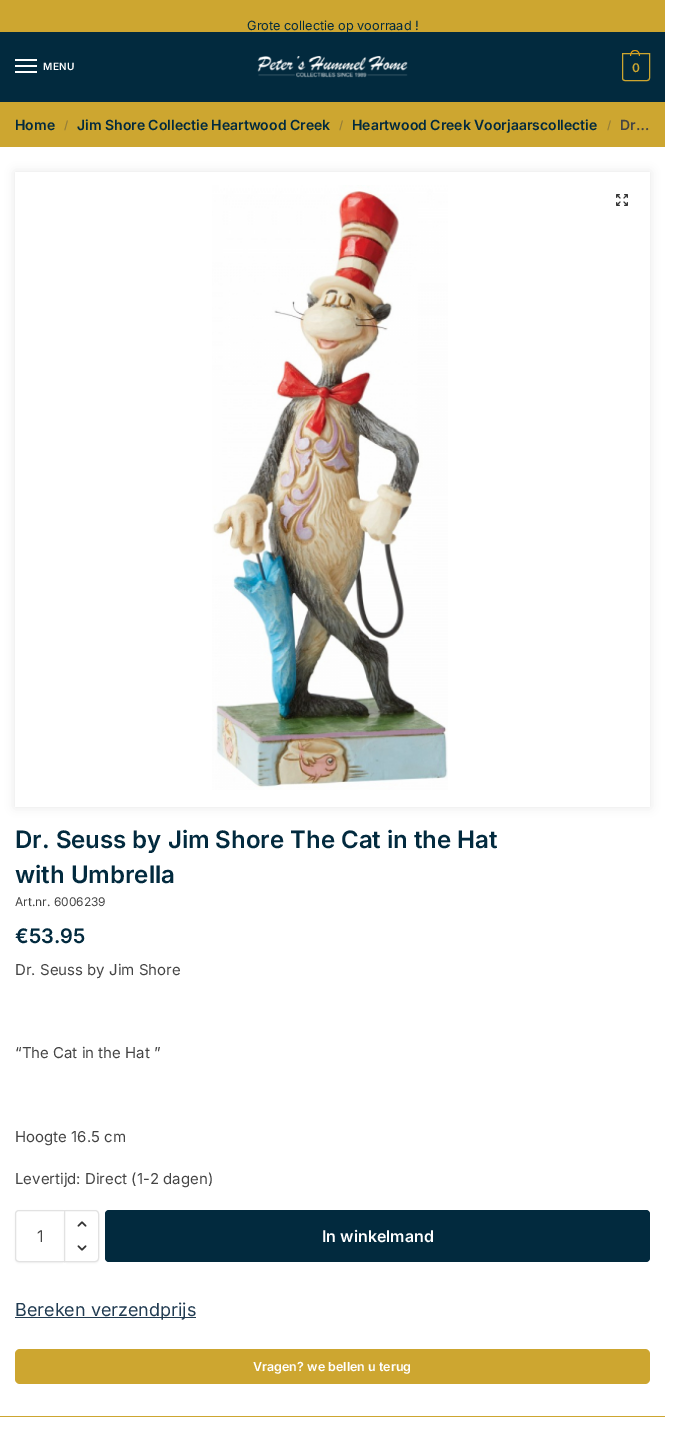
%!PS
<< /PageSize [680 1432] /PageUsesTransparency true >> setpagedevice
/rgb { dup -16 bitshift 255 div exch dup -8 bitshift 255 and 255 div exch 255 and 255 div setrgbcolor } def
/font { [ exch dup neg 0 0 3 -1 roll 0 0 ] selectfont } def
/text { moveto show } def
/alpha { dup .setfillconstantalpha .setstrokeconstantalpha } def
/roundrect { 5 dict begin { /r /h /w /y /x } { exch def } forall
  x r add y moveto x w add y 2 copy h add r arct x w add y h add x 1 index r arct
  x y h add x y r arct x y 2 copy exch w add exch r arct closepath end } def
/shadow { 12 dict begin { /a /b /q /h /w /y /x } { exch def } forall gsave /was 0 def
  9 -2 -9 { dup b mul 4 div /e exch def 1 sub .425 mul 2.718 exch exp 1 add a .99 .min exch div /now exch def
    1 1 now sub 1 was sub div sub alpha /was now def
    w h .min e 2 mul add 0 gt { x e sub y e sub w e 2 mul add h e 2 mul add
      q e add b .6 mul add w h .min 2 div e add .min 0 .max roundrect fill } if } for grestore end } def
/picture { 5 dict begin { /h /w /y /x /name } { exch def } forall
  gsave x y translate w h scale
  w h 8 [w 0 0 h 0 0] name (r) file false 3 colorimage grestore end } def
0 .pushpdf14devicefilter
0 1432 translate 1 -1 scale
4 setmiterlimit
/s1 { /Inter-Regular 12.75 font 16#022A3E rgb } def
/s2 { /Inter-SemiBold 14 font 16#022A3E rgb } def
/s3 { /Inter-SemiBold 11 font 16#967F38 rgb } def
/s4 { /Inter-SemiBold 14 font 16#444444 rgb } def
/s5 { /Inter-SemiBold 24 font 16#022A3E rgb } def
/s6 { /Inter-Regular 12 font 16#444444 rgb } def
/s7 { /Inter-SemiBold 20 font 16#022A3E rgb } def
/s8 { /Inter-Regular 15 font 16#444444 rgb } def
/s9 { /Inter-Regular 16 font 16#444444 rgb } def
/s10 { /Inter-SemiBold 16 font 16#FFFFFF rgb } def
/s11 { /Inter-Regular 18 font 16#223C52 rgb } def
/s12 { /Inter-SemiBold 12.5 font 16#FFFFFF rgb } def
16#FFFFFF rgb
0 0 680 1432 rectfill
16#CDA630 rgb
0 0 665 32 rectfill
s1
(Grote collectie op voorraad !) 247 30 text
0 32 665 70 rectfill
16#FFFFFF rgb
15 59 22 2 rectfill
15 65 22 2 rectfill
/Inter-SemiBold 10 font
43 70 moveto 0.5 0 (MENU) ashow
15 71 22 2 rectfill
(pic1.raw) 257 56 151 22 picture
16#CDA630 rgb
622.5 53.5 moveto 649.5 53.5 lineto 649.5 78 lineto 649.5 79.5 648.5 80.5 647 80.5 curveto 625 80.5 lineto 623.5 80.5 622.5 79.5 622.5 78 curveto closepath stroke
16#DC9814 rgb
635 50 moveto 638.5 50 640 53 640 56 curveto 630 56 lineto 630 53 631.5 50 635 50 curveto closepath 635 51 moveto 638 51 639 53.5 639 56 curveto 631 56 lineto 631 53.5 632 51 635 51 curveto closepath eofill
/Inter-SemiBold 12 font
16#CDA630 rgb
632 72 moveto -1 0 (0) ashow
0 102 665 45 rectfill
s2
(Home) 15 130 text
s3
(/) 64 129 text
s2
(Jim Shore Collectie Heartwood Creek) 77 130 text
s3
(/) 339 129 text
s2
(Heartwood Creek Voorjaarscollectie) 352 130 text
s3
(/) 607 129 text
s4
(Dr…) 620 130 text
16#CDA630 rgb
0 1416 665 1 rectfill
gsave
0 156 moveto 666 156 lineto 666 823 lineto 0 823 lineto closepath 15 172 moveto 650 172 lineto 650 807 lineto 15 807 lineto closepath eoclip newpath
16#000000 rgb
15 172 635 635 0 5 0.1 shadow
grestore
(pic2.raw) 212 185 236 605 picture
(pic3.raw) 616 194 12 12 picture
s5
(Dr. Seuss by Jim Shore The Cat in the Hat) 15 848 text
(with Umbrella) 15 883 text
s6
(Art.nr. 6006239) 15 906 text
s7
(€53.95) 15 943 text
s8
(Dr. Seuss by Jim Shore) 15 975 text
(“The Cat in the Hat ”) 15 1058 text
(Hoogte 16.5 cm) 15 1142 text
(Levertijd: Direct \(1-2 dagen\)) 15 1184 text
16#000000 rgb
15 1211 50 52 4 1 0.05 shadow
16#FFFFFF rgb
19 1210.5 moveto 64.5 1210.5 lineto 64.5 1261.5 lineto 19 1261.5 lineto 17 1261.5 15.5 1260 15.5 1258 curveto 15.5 1214 lineto 15.5 1212 17 1210.5 19 1210.5 curveto closepath gsave fill grestore
16#E2E2E2 rgb
stroke
s9
(1) 37 1242 text
16#000000 rgb
64 1211 35 52 4 1 0.05 shadow
16#FFFFFF rgb
64.5 1210.5 moveto 95 1210.5 lineto 97 1210.5 98.5 1212 98.5 1214 curveto 98.5 1258 lineto 98.5 1260 97 1261.5 95 1261.5 curveto 64.5 1261.5 lineto closepath gsave fill grestore
16#E2E2E2 rgb
stroke
(pic4.raw) 77 1221 10 6 picture
(pic5.raw) 77 1245 10 6 picture
16#022A3E rgb
105 1210 545 52 4 roundrect fill
s10
(In winkelmand) 322 1242 text
16#223C52 rgb
15 1317 181 1 rectfill
s11
(Bereken verzendprijs) 15 1316 text
16#CDA630 rgb
15 1349 635 35 5 roundrect fill
s12
(Vragen? we bellen u terug) 253 1371 text
.poppdf14devicefilter showpage
